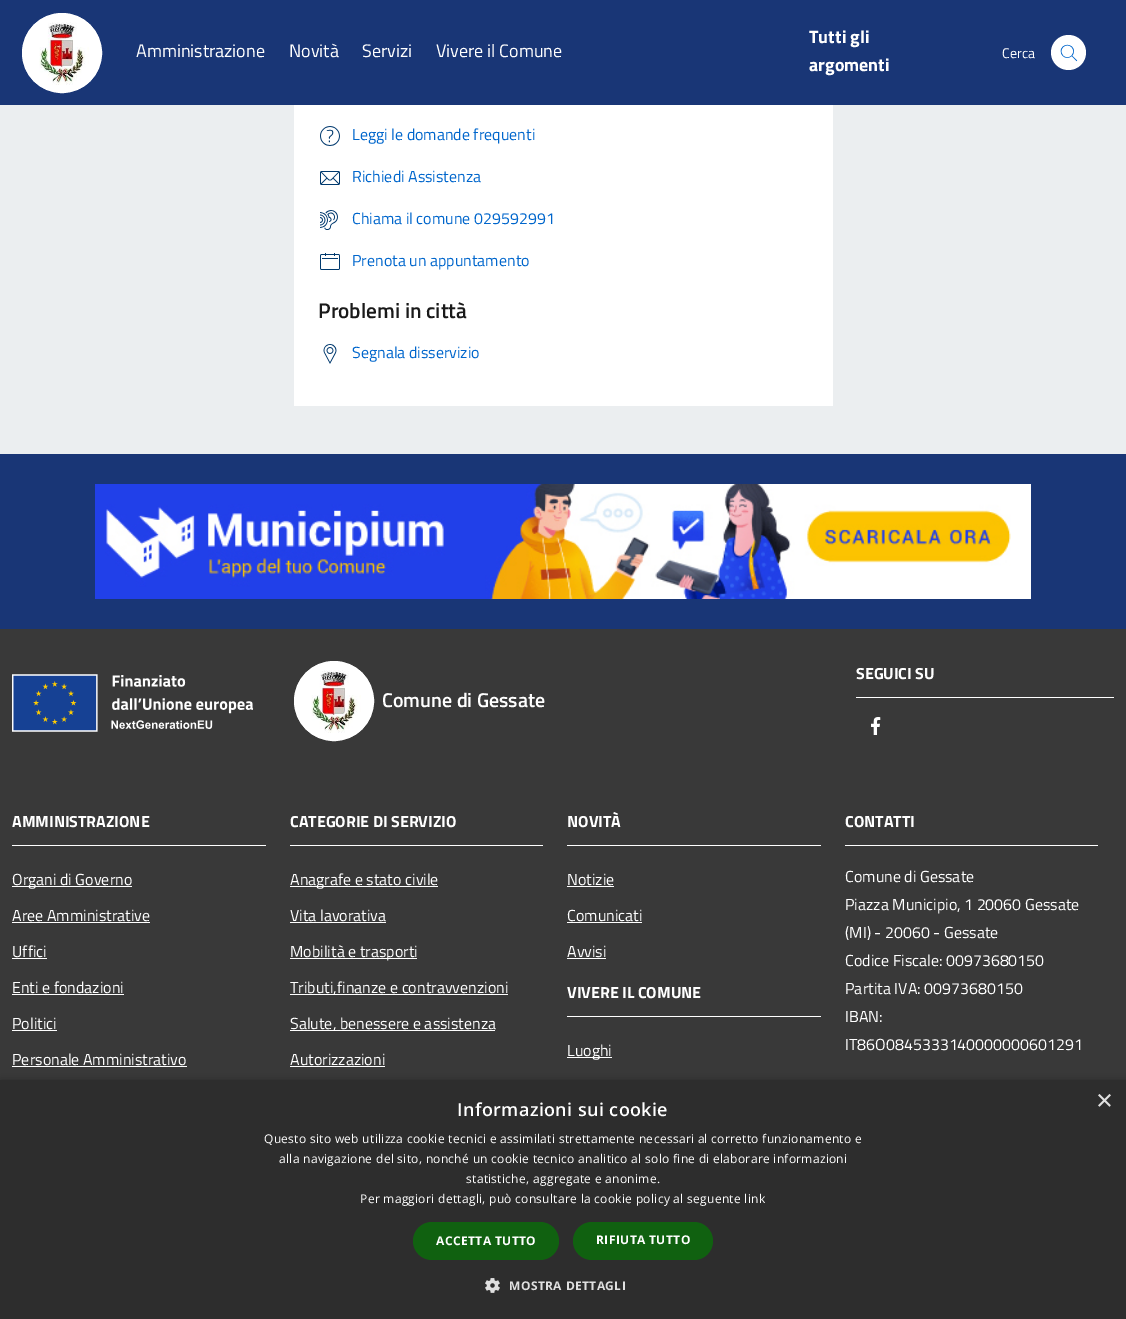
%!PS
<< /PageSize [1126 1319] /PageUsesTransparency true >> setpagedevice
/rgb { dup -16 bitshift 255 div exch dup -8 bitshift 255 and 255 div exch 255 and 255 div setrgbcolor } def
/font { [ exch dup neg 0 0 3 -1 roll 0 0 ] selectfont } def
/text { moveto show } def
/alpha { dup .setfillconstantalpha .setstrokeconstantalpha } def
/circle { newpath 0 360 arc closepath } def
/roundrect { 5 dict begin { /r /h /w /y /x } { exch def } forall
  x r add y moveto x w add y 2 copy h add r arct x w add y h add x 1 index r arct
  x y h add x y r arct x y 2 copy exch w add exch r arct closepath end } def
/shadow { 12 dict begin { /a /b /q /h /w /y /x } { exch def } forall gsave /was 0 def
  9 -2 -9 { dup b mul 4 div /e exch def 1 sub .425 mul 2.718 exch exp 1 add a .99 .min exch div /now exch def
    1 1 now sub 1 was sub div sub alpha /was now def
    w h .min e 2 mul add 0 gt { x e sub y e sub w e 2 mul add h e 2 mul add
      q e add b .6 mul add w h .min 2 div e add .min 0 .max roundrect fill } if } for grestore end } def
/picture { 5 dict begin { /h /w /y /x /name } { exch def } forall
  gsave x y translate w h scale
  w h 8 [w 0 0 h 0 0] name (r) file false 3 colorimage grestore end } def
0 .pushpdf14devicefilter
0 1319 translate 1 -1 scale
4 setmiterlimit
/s1 { /TitilliumWeb-Regular 18 font 16#FFFFFF rgb } def
/s2 { /TitilliumWeb-Bold 18 font 16#FFFFFF rgb } def
/s3 { /TitilliumWeb-Regular 14 font 16#FFFFFF rgb } def
/s4 { /TitilliumWeb-Regular 16 font 16#0066CC rgb } def
/s5 { /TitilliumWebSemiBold-SemiBold 21.25 font 16#1A1A1A rgb } def
/s6 { /TitilliumWebSemiBold-SemiBold 20 font 16#FFFFFF rgb } def
/s7 { /TitilliumWeb-Bold 16 font 16#FFFFFF rgb } def
/s8 { /TitilliumWeb-Regular 16 font 16#FFFFFF rgb } def
/s9 { /LiberationSans-Regular 29 font 16#E0E0E0 rgb } def
16#EBEEF0 rgb
0 0 1126 1319 rectfill
16#193676 rgb
0 0 1126 105 rectfill
16#FFFFFF rgb
62 53 39.5 circle gsave fill grestore
stroke
(pic1.raw) 39 22 50 63 picture
s1
(Amministrazione) 136 57 text
(Novità) 289 57 text
(Servizi) 362 57 text
(Vivere il Comune) 436 57 text
s2
(Tutti gli) 809 43 text
(argomenti) 809 71 text
s3
(Cerca) 1002 58 text
1068.5 52.5 17.5 circle fill
(pic2.raw) 1060 44 18 18 picture
294 105 539 301 rectfill
(pic3.raw) 320 126 20 20 picture
s4
(Leggi le domande frequenti) 352 140 text
(pic4.raw) 320 171 20 14 picture
(Richiedi Assistenza) 352 182 text
(pic5.raw) 320 210 18 20 picture
(Chiama il comune 029592991) 352 224 text
(pic6.raw) 320 253 20 17 picture
(Prenota un appuntamento) 352 266 text
s5
(Problemi in città) 318 318 text
(pic7.raw) 323 344 14 20 picture
s4
(Segnala disservizio) 352 358 text
16#393939 rgb
0 629 1126 451 rectfill
16#193676 rgb
0 454 1126 175 rectfill
(pic8.raw) 95 484 936 115 picture
(pic9.raw) 12 674 242 58 picture
16#FFFFFF rgb
334 701 39.5 circle gsave fill grestore
stroke
(pic10.raw) 311 670 50 63 picture
s6
(Comune di Gessate) 382 707 text
856 697 258 1 rectfill
s7
(SEGUICI SU) 856 679 text
(pic11.raw) 871 717 10 18 picture
12 845 254 1 rectfill
(AMMINISTRAZIONE) 12 827 text
12 886 120 1 rectfill
s8
(Organi di Governo) 12 885 text
(Aree Amministrative) 12 921 text
12 922 138 1 rectfill
(Uffici) 12 957 text
12 958 35 1 rectfill
(Enti e fondazioni) 12 993 text
12 994 112 1 rectfill
(Politici) 12 1029 text
12 1030 45 1 rectfill
(Personale Amministrativo) 12 1065 text
12 1066 175 1 rectfill
290 845 253 1 rectfill
s7
(CATEGORIE DI SERVIZIO) 290 827 text
290 886 148 1 rectfill
s8
(Anagrafe e stato civile) 290 885 text
(Vita lavorativa) 290 921 text
290 922 96 1 rectfill
290 958 127 1 rectfill
(Mobilità e trasporti) 290 957 text
290 994 218 1 rectfill
(Tributi,finanze e contravvenzioni) 290 993 text
290 1030 205 1 rectfill
(Salute, benessere e assistenza) 290 1029 text
(Autorizzazioni) 290 1065 text
290 1066 95 1 rectfill
567 845 254 1 rectfill
s7
(NOVITÀ) 567 827 text
s8
(Notizie) 567 885 text
567 886 47 1 rectfill
(Comunicati) 567 921 text
567 922 75 1 rectfill
(Avvisi) 567 957 text
567 958 39 1 rectfill
567 1016 254 1 rectfill
s7
(VIVERE IL COMUNE) 567 998 text
567 1057 45 1 rectfill
s8
(Luoghi) 567 1056 text
845 845 253 1 rectfill
s7
(CONTATTI) 845 827 text
s8
(Comune di Gessate) 845 882 text
(Piazza Municipio, 1 20060 Gessate) 845 910 text
(\(MI\) - 20060 - Gessate) 845 938 text
(Codice Fiscale: 00973680150) 845 966 text
(Partita IVA: 00973680150) 845 994 text
(IBAN:) 845 1022 text
(IT86O0845333140000000601291) 845 1050 text
16#000000 rgb
1 1082 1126 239 0 4 0.35 shadow
16#2D2D2D rgb
0 1080 1126 239 rectfill
s9
(×) 1096 1110 text
/OpenSans-SemiBold 18 font
16#FFFFFF rgb
457 1116 moveto 0.4 0 (Informazioni sui cookie) ashow
/OpenSans-Regular 12 font
264 1143 moveto 0.3 0 (Questo sito web utilizza cookie tecnici e assimilati strettamente necessari al corretto funzionamento e) ashow
279 1163 moveto 0.3 0 (alla navigazione del sito, nonché un cookie tecnico analitico al solo fine di elaborare informazioni) ashow
466 1183 moveto 0.3 0 (statistiche, aggregate e anonime.) ashow
360 1203 moveto 0.3 0 (Per maggiori dettagli, può consultare la cookie policy al seguente link) ashow
16#106110 rgb
413 1222 146 38 19 roundrect fill
/OpenSans-Bold 12 font
16#FFFFFF rgb
436 1245 moveto 0.4 0 (ACCETTA TUTTO) ashow
16#106110 rgb
573 1222 140 38 19 roundrect fill
16#FFFFFF rgb
596 1244 moveto 0.4 0 (RIFIUTA TUTTO) ashow
(pic12.raw) 485 1278 15 15 picture
16#E0E0E0 rgb
509 1290 moveto 0.4 0 (MOSTRA DETTAGLI) ashow
.poppdf14devicefilter showpage
